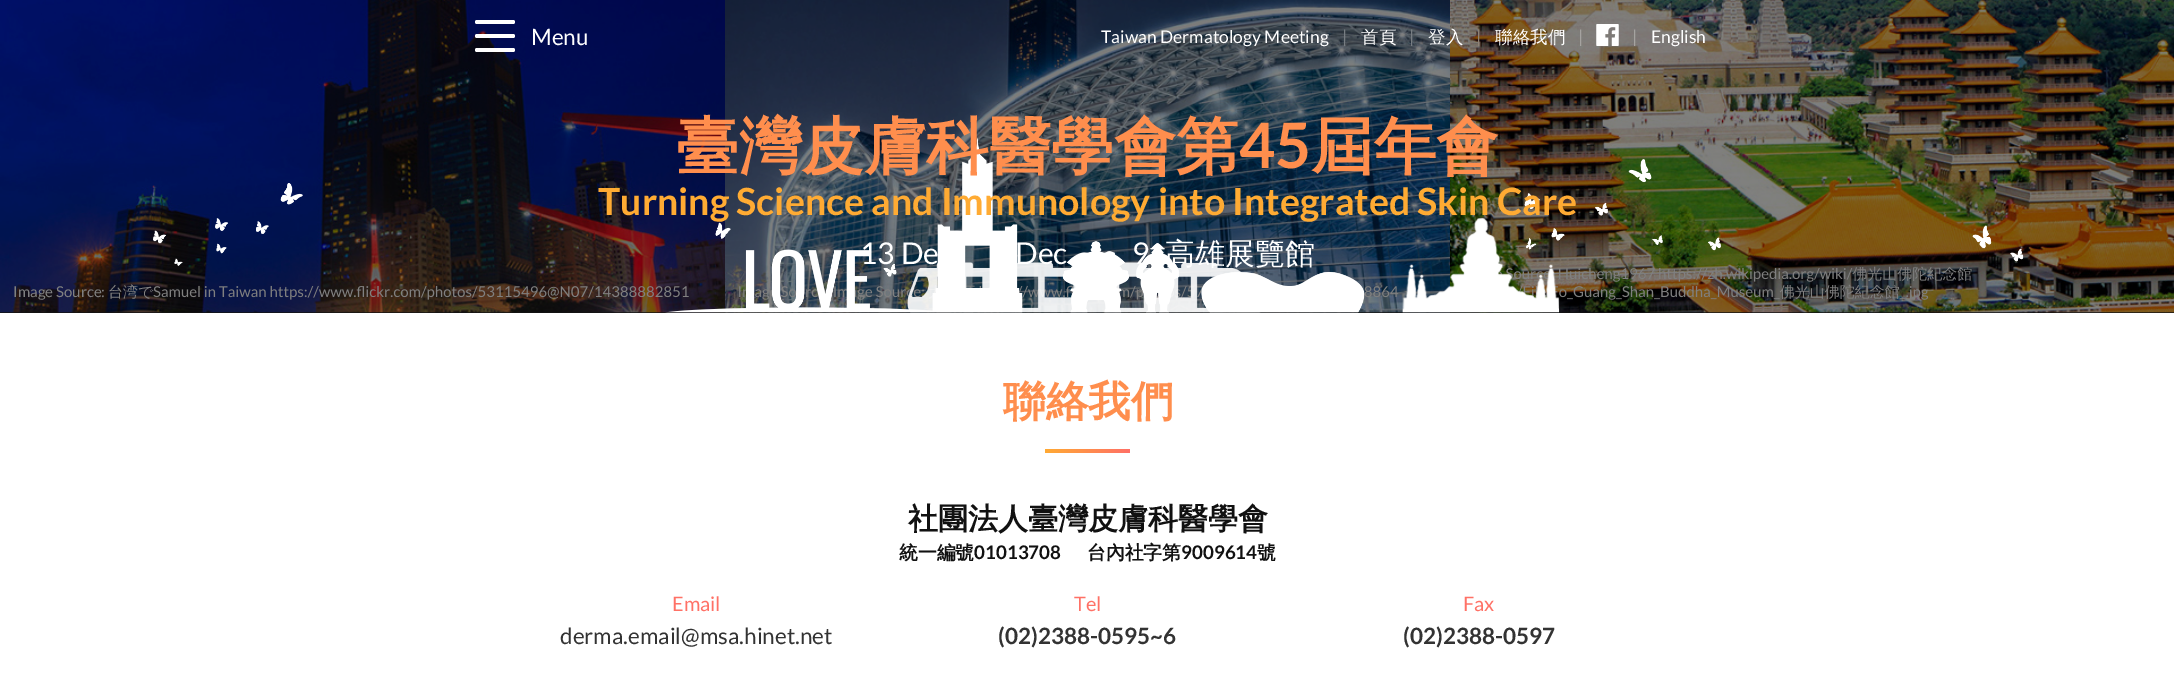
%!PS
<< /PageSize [2174 673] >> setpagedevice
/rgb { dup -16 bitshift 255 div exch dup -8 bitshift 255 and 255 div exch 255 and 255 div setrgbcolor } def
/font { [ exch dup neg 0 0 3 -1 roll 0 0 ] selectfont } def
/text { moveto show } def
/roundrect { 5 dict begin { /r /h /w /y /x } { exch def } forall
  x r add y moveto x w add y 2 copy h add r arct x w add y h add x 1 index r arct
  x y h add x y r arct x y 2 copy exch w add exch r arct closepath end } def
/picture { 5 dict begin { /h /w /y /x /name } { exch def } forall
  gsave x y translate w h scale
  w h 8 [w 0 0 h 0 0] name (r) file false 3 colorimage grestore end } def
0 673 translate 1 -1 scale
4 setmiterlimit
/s1 { /Lato-Regular 22.5 font 16#FFFFFF rgb } def
/s2 { /Lato-Regular 17.5 font 16#FFFFFF rgb } def
/s3 { /Lato-Regular 17.5 font 16#777D82 rgb } def
/s4 { /WenQuanYiZenHei-Medium 17.5 font 16#FFFFFF rgb } def
/s5 { /Lato-Regular 17.5 font 16#8F8174 rgb } def
/s6 { /Lato-Regular 17.5 font 16#A5A3A0 rgb } def
/s7 { /Lato-Regular 15 font 16#808080 rgb } def
/s8 { /WenQuanYiZenHei-Medium 15 font 16#808080 rgb } def
/s9 { /WenQuanYiZenHei-Bold 62.5 font 16#FF8E4D rgb } def
/s10 { /Lato-Bold 62.5 font 16#FF8E4D rgb } def
/s11 { /Lato-Bold 37.5 font 16#FFAB33 rgb } def
/s12 { /Lato-Regular 30 font 16#FFFFFF rgb } def
/s13 { /WenQuanYiZenHei-Medium 30 font 16#FFFFFF rgb } def
/s14 { /WenQuanYiZenHei-Bold 42.5 font 16#FF8E4D rgb } def
/s15 { /WenQuanYiZenHei-Bold 30 font 16#111111 rgb } def
/s16 { /WenQuanYiZenHei-Bold 18.75 font 16#111111 rgb } def
/s17 { /Lato-Bold 18.75 font 16#111111 rgb } def
/s18 { /Lato-Regular 20 font 16#FF7166 rgb } def
/s19 { /Lato-Regular 22.5 font 16#333333 rgb } def
/s20 { /Lato-Bold 22.5 font 16#333333 rgb } def
16#131313 rgb
0 0 2174 673 rectfill
(pic4.raw) 0 0 725 313 picture
16#FFFFFF rgb
475 20 40 4 2 roundrect fill
475 34 40 4 2 roundrect fill
475 48 40 4 2 roundrect fill
s1
(Menu) 531 45 text
(pic5.raw) 725 0 725 313 picture
s2
(Taiwan Dermatology Meeting) 1101 43 text
s3
(|) 1342 43 text
s4
(首頁) 1361 43 text
s3
(|) 1409 43 text
(pic6.raw) 1450 0 724 313 picture
s4
(登入) 1428 43 text
s5
(|) 1476 43 text
s4
(聯絡我們) 1495 43 text
s6
(|) 1578 43 text
(pic1.raw) 1596 24 23 22 picture
(|) 1632 43 text
s2
(English) 1651 43 text
s7
(Samuel in Taiwan https://www.flickr.com/photos/53115496@N07/14388882851) 153 297 text
(Ima) 738 297 text
(Sourc) 780 297 text
(I) 833 297 text
(e Source) 865 297 text
(/) 1022 297 text
(w.f) 1051 297 text
(/p) 1130 297 text
(/) 1181 297 text
(8864) 1364 297 text
(e Source: Huicheng1967 https://zh.wikipedia.org/wiki/) 1495 279 text
s8
(佛光山佛陀紀念館) 1852 279 text
s7
(o_Guang_Shan_Buddha_Museum_) 1559 297 text
s8
(佛光山佛陀紀念館) 1780 297 text
s7
(_.jpg) 1900 297 text
(pic2.raw) 153 137 1871 176 picture
s9
(臺灣皮膚科醫學會第) 676 168 text
s10
(45) 1239 168 text
s9
(屆年會) 1311 168 text
s11
(Turning Science and Immunology into Integrated Skin Care) 598 215 text
(pic3.raw) 907 262 354 51 picture
s12
(13 De) 860 264 text
(Dec) 1015 264 text
(9) 1132 264 text
s13
(高雄展覽館) 1165 264 text
s7
(Image Source:) 13 297 text
s8
(台湾で) 108 297 text
16#FFFFFF rgb
0 313 2174 360 rectfill
s14
(聯絡我們) 1003 416 text
gsave 1045 449 moveto 1130 449 lineto 1130 453 lineto 1045 453 lineto closepath clip newpath
<< /ShadingType 2 /ColorSpace /DeviceRGB /Coords [1045 451 1130 451] /Extend [true true] /Function << /FunctionType 2 /Domain [0 1] /C0 [1 0.667 0.2] /C1 [1 0.439 0.4] /N 1 >> >> shfill grestore
s15
(社團法人臺灣皮膚科醫學會) 908 529 text
s16
(統一編號) 899 559 text
s17
(01013708) 974 559 text
s16
(台內社字第) 1087 559 text
s17
(9009614) 1181 559 text
s16
(號) 1257 559 text
s18
(Email) 672 611 text
s19
(derma.email@msa.hinet.net) 560 644 text
s18
(Tel) 1074 611 text
s20
(\(02\)2388-0595~6) 998 644 text
s18
(Fax) 1463 611 text
s20
(\(02\)2388-0597) 1403 644 text
showpage
